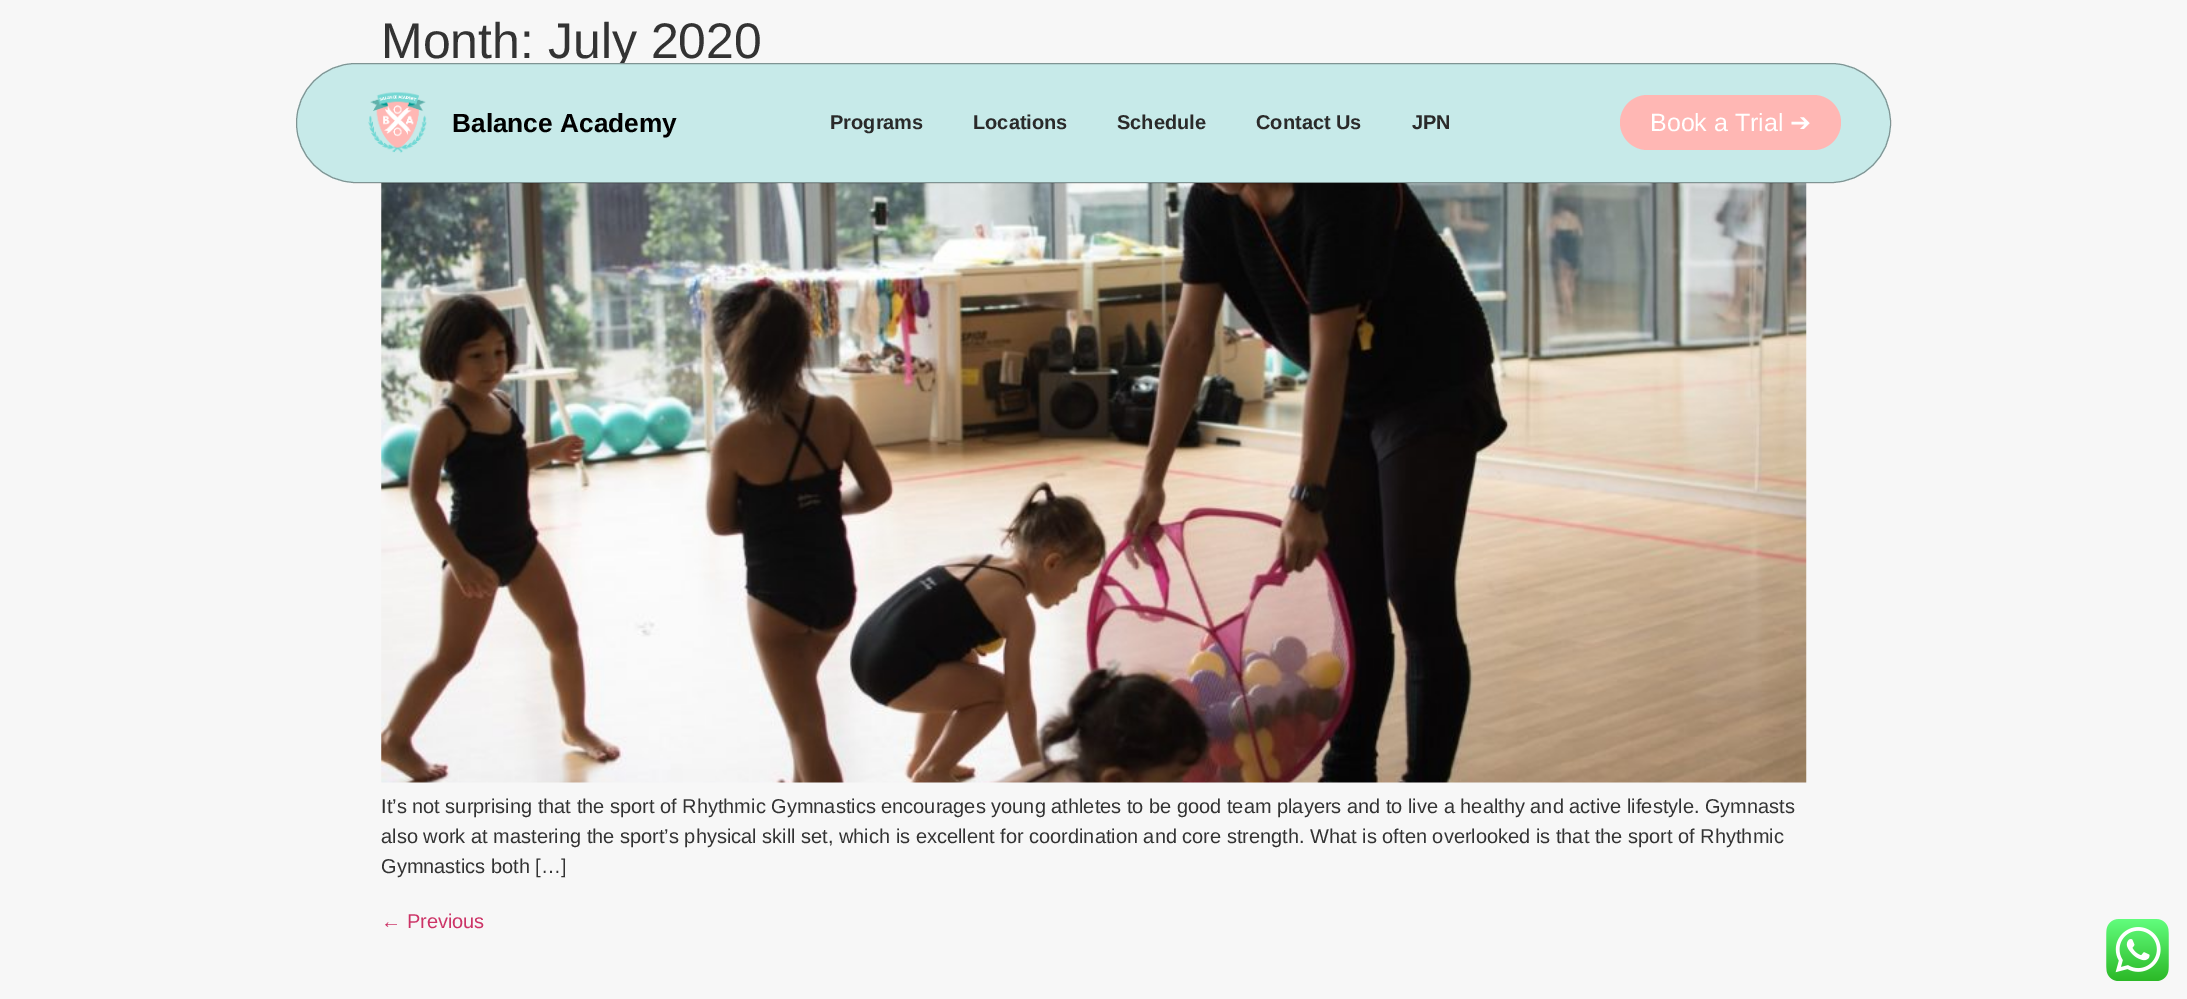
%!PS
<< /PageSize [2187 999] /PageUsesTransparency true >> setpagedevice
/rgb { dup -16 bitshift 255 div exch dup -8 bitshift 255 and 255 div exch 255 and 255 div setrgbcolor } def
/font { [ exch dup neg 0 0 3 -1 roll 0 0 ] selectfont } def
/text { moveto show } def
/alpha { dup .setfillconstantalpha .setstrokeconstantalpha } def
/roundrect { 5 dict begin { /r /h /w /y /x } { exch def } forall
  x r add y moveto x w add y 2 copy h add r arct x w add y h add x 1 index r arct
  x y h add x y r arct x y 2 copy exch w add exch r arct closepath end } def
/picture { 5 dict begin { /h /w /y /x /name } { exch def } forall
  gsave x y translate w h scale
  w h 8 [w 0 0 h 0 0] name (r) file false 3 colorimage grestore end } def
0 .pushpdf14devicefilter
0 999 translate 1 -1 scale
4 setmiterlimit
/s1 { /LiberationSans-Regular 50 font 16#333333 rgb } def
/s2 { /LiberationSans-Regular 20 font 16#333333 rgb } def
/s3 { /LiberationSans-Regular 20 font 16#CC3366 rgb } def
/s4 { /LiberationSans-Bold 26.25 font 16#000000 rgb } def
/s5 { /LiberationSans-Bold 20 font 16#2A2A2A rgb } def
/s6 { /LiberationSans-Regular 25 font 16#FFFFFF rgb } def
/s7 { /DejaVuSans-Regular 25 font 16#FFFFFF rgb } def
16#F7F7F7 rgb
0 0 2187 999 rectfill
s1
(Month: July 2020) 381 58 text
(pic1.raw) 381 183 1426 600 picture
s2
(It’s not surprising that the sport of Rhythmic Gymnastics encourages young athletes to be good team players and to live a healthy and active lifestyle. Gymnasts) 381 813 text
(also work at mastering the sport’s physical skill set, which is excellent for coordination and core strength. What is often overlooked is that the sport of Rhythmic) 381 843 text
(Gymnastics both […]) 381 873 text
s3
(← Previous) 381 928 text
16#C7EAE9 rgb
296 63 1595 120 60 roundrect fill
0.4 alpha
16#121212 rgb
296.5 63.5 1594 119 59.5 roundrect stroke
1 alpha
(pic2.raw) 368 92 59 61 picture
s4
(Balance Academy) 452 132 text
s5
(Programs) 830 129 text
(Locations) 973 129 text
(Schedule) 1117 129 text
(Contact Us) 1256 129 text
(JPN) 1412 129 text
16#FFB7B4 rgb
1620 95 221 55 27.5 roundrect fill
s6
(Book a Trial) 1650 131 text
s7
(➔) 1790 131 text
(pic3.raw) 2106 919 63 62 picture
.poppdf14devicefilter showpage
